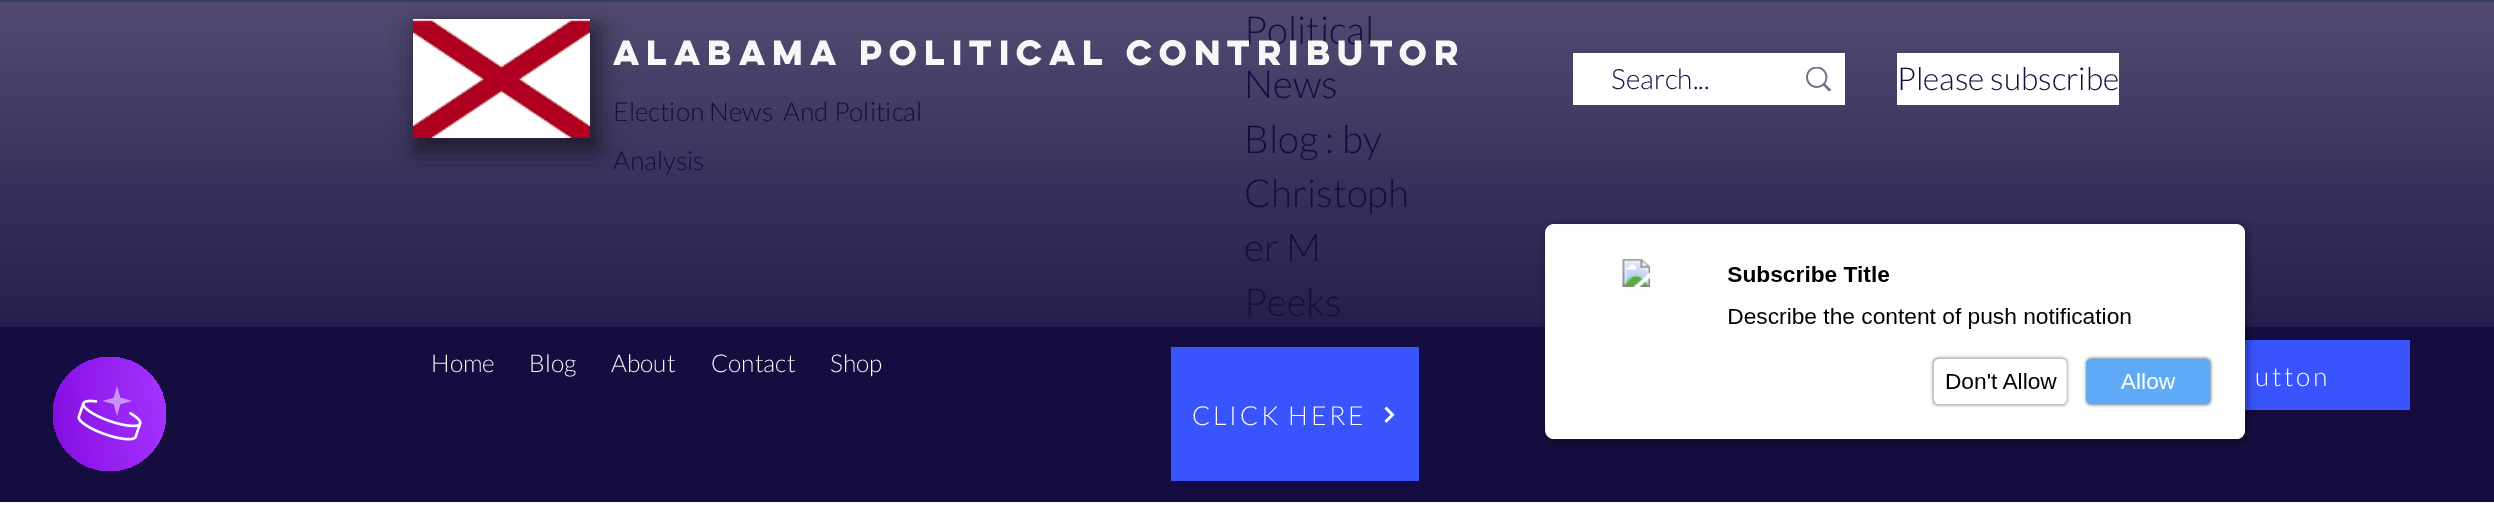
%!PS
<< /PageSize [2494 523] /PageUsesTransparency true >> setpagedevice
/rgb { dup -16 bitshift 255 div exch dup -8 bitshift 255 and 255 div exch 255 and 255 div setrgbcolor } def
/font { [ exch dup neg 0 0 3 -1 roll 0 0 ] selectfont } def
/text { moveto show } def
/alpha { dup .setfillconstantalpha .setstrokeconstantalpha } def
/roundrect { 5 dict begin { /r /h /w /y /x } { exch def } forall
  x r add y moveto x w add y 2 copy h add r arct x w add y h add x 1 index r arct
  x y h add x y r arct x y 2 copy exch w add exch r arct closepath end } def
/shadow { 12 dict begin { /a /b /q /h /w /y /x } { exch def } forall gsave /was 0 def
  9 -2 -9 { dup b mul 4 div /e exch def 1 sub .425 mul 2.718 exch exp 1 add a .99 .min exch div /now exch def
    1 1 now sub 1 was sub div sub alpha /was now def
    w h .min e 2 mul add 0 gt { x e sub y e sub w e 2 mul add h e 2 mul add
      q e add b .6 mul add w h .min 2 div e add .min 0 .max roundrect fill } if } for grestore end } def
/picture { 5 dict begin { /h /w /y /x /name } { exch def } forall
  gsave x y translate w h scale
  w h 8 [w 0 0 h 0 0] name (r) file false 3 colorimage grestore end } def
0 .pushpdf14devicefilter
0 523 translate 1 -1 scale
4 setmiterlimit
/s1 { /Lato-Light 38.5 font 16#150C3F rgb } def
/s2 { /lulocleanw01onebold-Bold 31.5 font 16#F7F7F7 rgb } def
/s3 { /Lato-Light 26.25 font 16#150C3F rgb } def
/s4 { /Lato-Light 28 font 16#150C3F rgb } def
/s5 { /Lato-Light 31.5 font 16#150C3F rgb } def
/s6 { /Lato-Light 24.5 font 16#F7F7F7 rgb } def
16#FFFFFF rgb
0 0 2494 523 rectfill
16#150C3F rgb
0 0 2494 502 rectfill
(pic1.raw) 0 0 2494 327 picture
s1
(Political) 1244 44 text
(News) 1244 98 text
(Blog : by) 1244 153 text
(Christoph) 1244 207 text
(er M) 1244 261 text
(Peeks) 1244 316 text
16#324158 rgb
0 0 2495 2 1 roundrect fill
16#000000 rgb
415 26 184 126 0 11.5 0.5 shadow
16#FFFFFF rgb
413 19 177 3 rectfill
(pic2.raw) 413 20 177 118 picture
s2
(Alabama Political Contributor) 613 65 text
s3
(Election News  And Political) 613 121 text
(Analysis) 613 170 text
16#FFFFFF rgb
1573 53 272 52 rectfill
s4
(Search...) 1611 89 text
(pic3.raw) 1806 67 25 24 picture
16#FFFFFF rgb
1897 53 222 52 rectfill
s5
(Please subscribe) 1897 90 text
(pic4.raw) 1846 345 39 38 picture
(pic5.raw) 2037 346 24 13 picture
s6
(Home) 431 372 text
(Blog) 529 372 text
(About) 611 372 text
(Contact) 711 372 text
(Shop) 830 372 text
16#3A54FD rgb
2161 340 249 70 rectfill
/Lato-Light 26.25 font
16#FFFFFF rgb
2255 386 moveto 2.6 0 (utton) ashow
16#3A54FD rgb
1171 347 248 134 rectfill
16#FFFFFF rgb
1192 425 moveto 2.6 0 (CLICK HERE) ashow
(pic6.raw) 1384 406 11 17 picture
gsave 53 357 113 114 56.5 roundrect clip newpath
<< /ShadingType 2 /ColorSpace /DeviceRGB /Coords [172 407 47 421] /Extend [true true] /Function << /FunctionType 3 /Domain [0 1] /Functions [<< /FunctionType 2 /Domain [0 1] /C0 [0.647 0.196 1] /C1 [0.647 0.196 1] /N 1 >> << /FunctionType 2 /Domain [0 1] /C0 [0.647 0.196 1] /C1 [0.522 0.059 0.886] /N 1 >> << /FunctionType 2 /Domain [0 1] /C0 [0.522 0.059 0.886] /C1 [0.522 0.059 0.886] /N 1 >>] /Bounds [0.05 0.97] /Encode [0 1 0 1 0 1] >> >> shfill grestore
(pic7.raw) 77 386 65 55 picture
gsave
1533 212 moveto 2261 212 lineto 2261 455 lineto 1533 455 lineto closepath 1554 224 moveto 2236 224 lineto 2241 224 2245 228 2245 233 curveto 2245 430 lineto 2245 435 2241 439 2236 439 curveto 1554 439 lineto 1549 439 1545 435 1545 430 curveto 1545 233 lineto 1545 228 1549 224 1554 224 curveto closepath eoclip newpath
16#000000 rgb
1545 224 704 219 11 3.5 0.3 shadow
grestore
0.95 alpha
1545 224 700 215 9 roundrect fill
1 alpha
(pic8.raw) 1545 224 700 215 picture
.poppdf14devicefilter showpage
